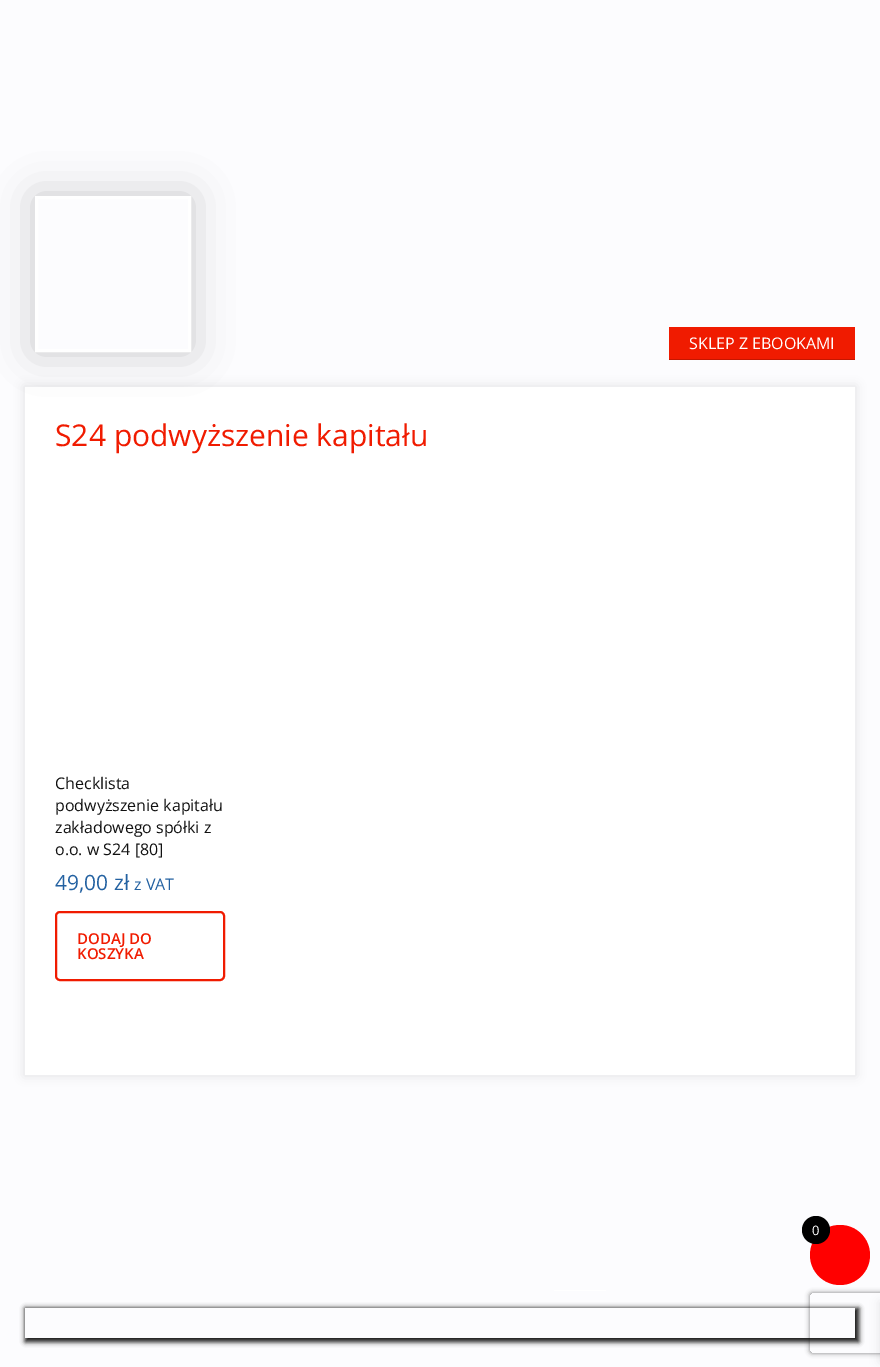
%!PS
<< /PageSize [880 1367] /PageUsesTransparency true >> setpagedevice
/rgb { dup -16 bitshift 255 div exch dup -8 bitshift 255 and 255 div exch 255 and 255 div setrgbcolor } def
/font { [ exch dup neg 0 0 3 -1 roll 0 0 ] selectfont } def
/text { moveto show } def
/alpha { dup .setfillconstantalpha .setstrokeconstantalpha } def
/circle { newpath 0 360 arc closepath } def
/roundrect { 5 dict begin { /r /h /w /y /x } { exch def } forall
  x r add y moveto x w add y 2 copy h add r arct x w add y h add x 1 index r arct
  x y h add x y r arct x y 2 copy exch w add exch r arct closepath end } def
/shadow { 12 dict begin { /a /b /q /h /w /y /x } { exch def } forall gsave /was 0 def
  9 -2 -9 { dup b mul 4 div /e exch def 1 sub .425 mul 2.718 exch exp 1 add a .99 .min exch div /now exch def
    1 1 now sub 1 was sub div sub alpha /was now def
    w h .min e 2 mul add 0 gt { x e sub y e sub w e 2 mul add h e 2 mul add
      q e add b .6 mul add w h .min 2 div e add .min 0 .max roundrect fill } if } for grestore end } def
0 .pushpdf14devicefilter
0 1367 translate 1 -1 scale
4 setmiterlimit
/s1 { /OpenSans-Regular 16 font 16#FFFFFF rgb } def
/s2 { /OpenSans-Regular 30 font 16#F01B00 rgb } def
/s3 { /OpenSans-Regular 16 font 16#111111 rgb } def
/s4 { /OpenSans-Regular 21 font 16#2361A1 rgb } def
/s5 { /OpenSans-Regular 16 font 16#2361A1 rgb } def
/s6 { /OpenSans-SemiBold 15 font 16#F01B00 rgb } def
/s7 { /OpenSans-Regular 13 font 16#FFFFFF rgb } def
16#FCFCFE rgb
0 0 880 1367 rectfill
16#000000 rgb
24 386 832 690 0 5 0.1 shadow
16#FFFFFF rgb
25 387 830 688 rectfill
gsave
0 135 moveto 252 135 lineto 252 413 lineto 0 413 lineto closepath 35 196 moveto 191 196 lineto 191 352 lineto 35 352 lineto closepath eoclip newpath
16#000000 rgb
35 196 156 156 0 20 0.2 shadow
grestore
3 setlinewidth
36.5 197.5 153 153 rectstroke
16#F01B00 rgb
669 327 186 32 rectfill
16#C41600 rgb
669 359 186 1 rectfill
s1
(SKLEP Z EBOOKAMI) 689 349 text
s2
(S24 podwyższenie kapitału) 55 446 text
s3
(Checklista) 55 789 text
(podwyższenie kapitału) 55 811 text
(zakładowego spółki z) 55 833 text
(o.o. w S24 [80]) 55 855 text
s4
(49,00 zł) 55 890 text
s5
(z VAT) 134 890 text
16#F01B00 rgb
2 setlinewidth
56 912 168 68 4 roundrect stroke
s6
(DODAJ DO) 77 944 text
(KOSZYKA) 77 959 text
gsave
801 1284 moveto 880 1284 lineto 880 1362 lineto 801 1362 lineto closepath 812 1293 moveto 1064 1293 lineto 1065 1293 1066 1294 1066 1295 curveto 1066 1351 lineto 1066 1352 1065 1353 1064 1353 curveto 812 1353 lineto 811 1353 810 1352 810 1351 curveto 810 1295 lineto 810 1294 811 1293 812 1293 curveto closepath eoclip newpath
16#808080 rgb
810 1293 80 60 2 2.5 1 shadow
grestore
16#FF0000 rgb
840 1255 30 circle fill
16#000000 rgb
816 1230 14 circle fill
s7
(0) 812 1235 text
16#000000 rgb
880 1302 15 60 0 5 0.1 shadow
16#FFFFFF rgb
554 1290 52 1 rectfill
gsave
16 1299 moveto 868 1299 lineto 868 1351 lineto 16 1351 lineto closepath 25 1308 moveto 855 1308 lineto 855 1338 lineto 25 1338 lineto closepath eoclip newpath
16#161616 rgb
25 1308 834 34 0 2.5 1 shadow
grestore
.poppdf14devicefilter showpage
